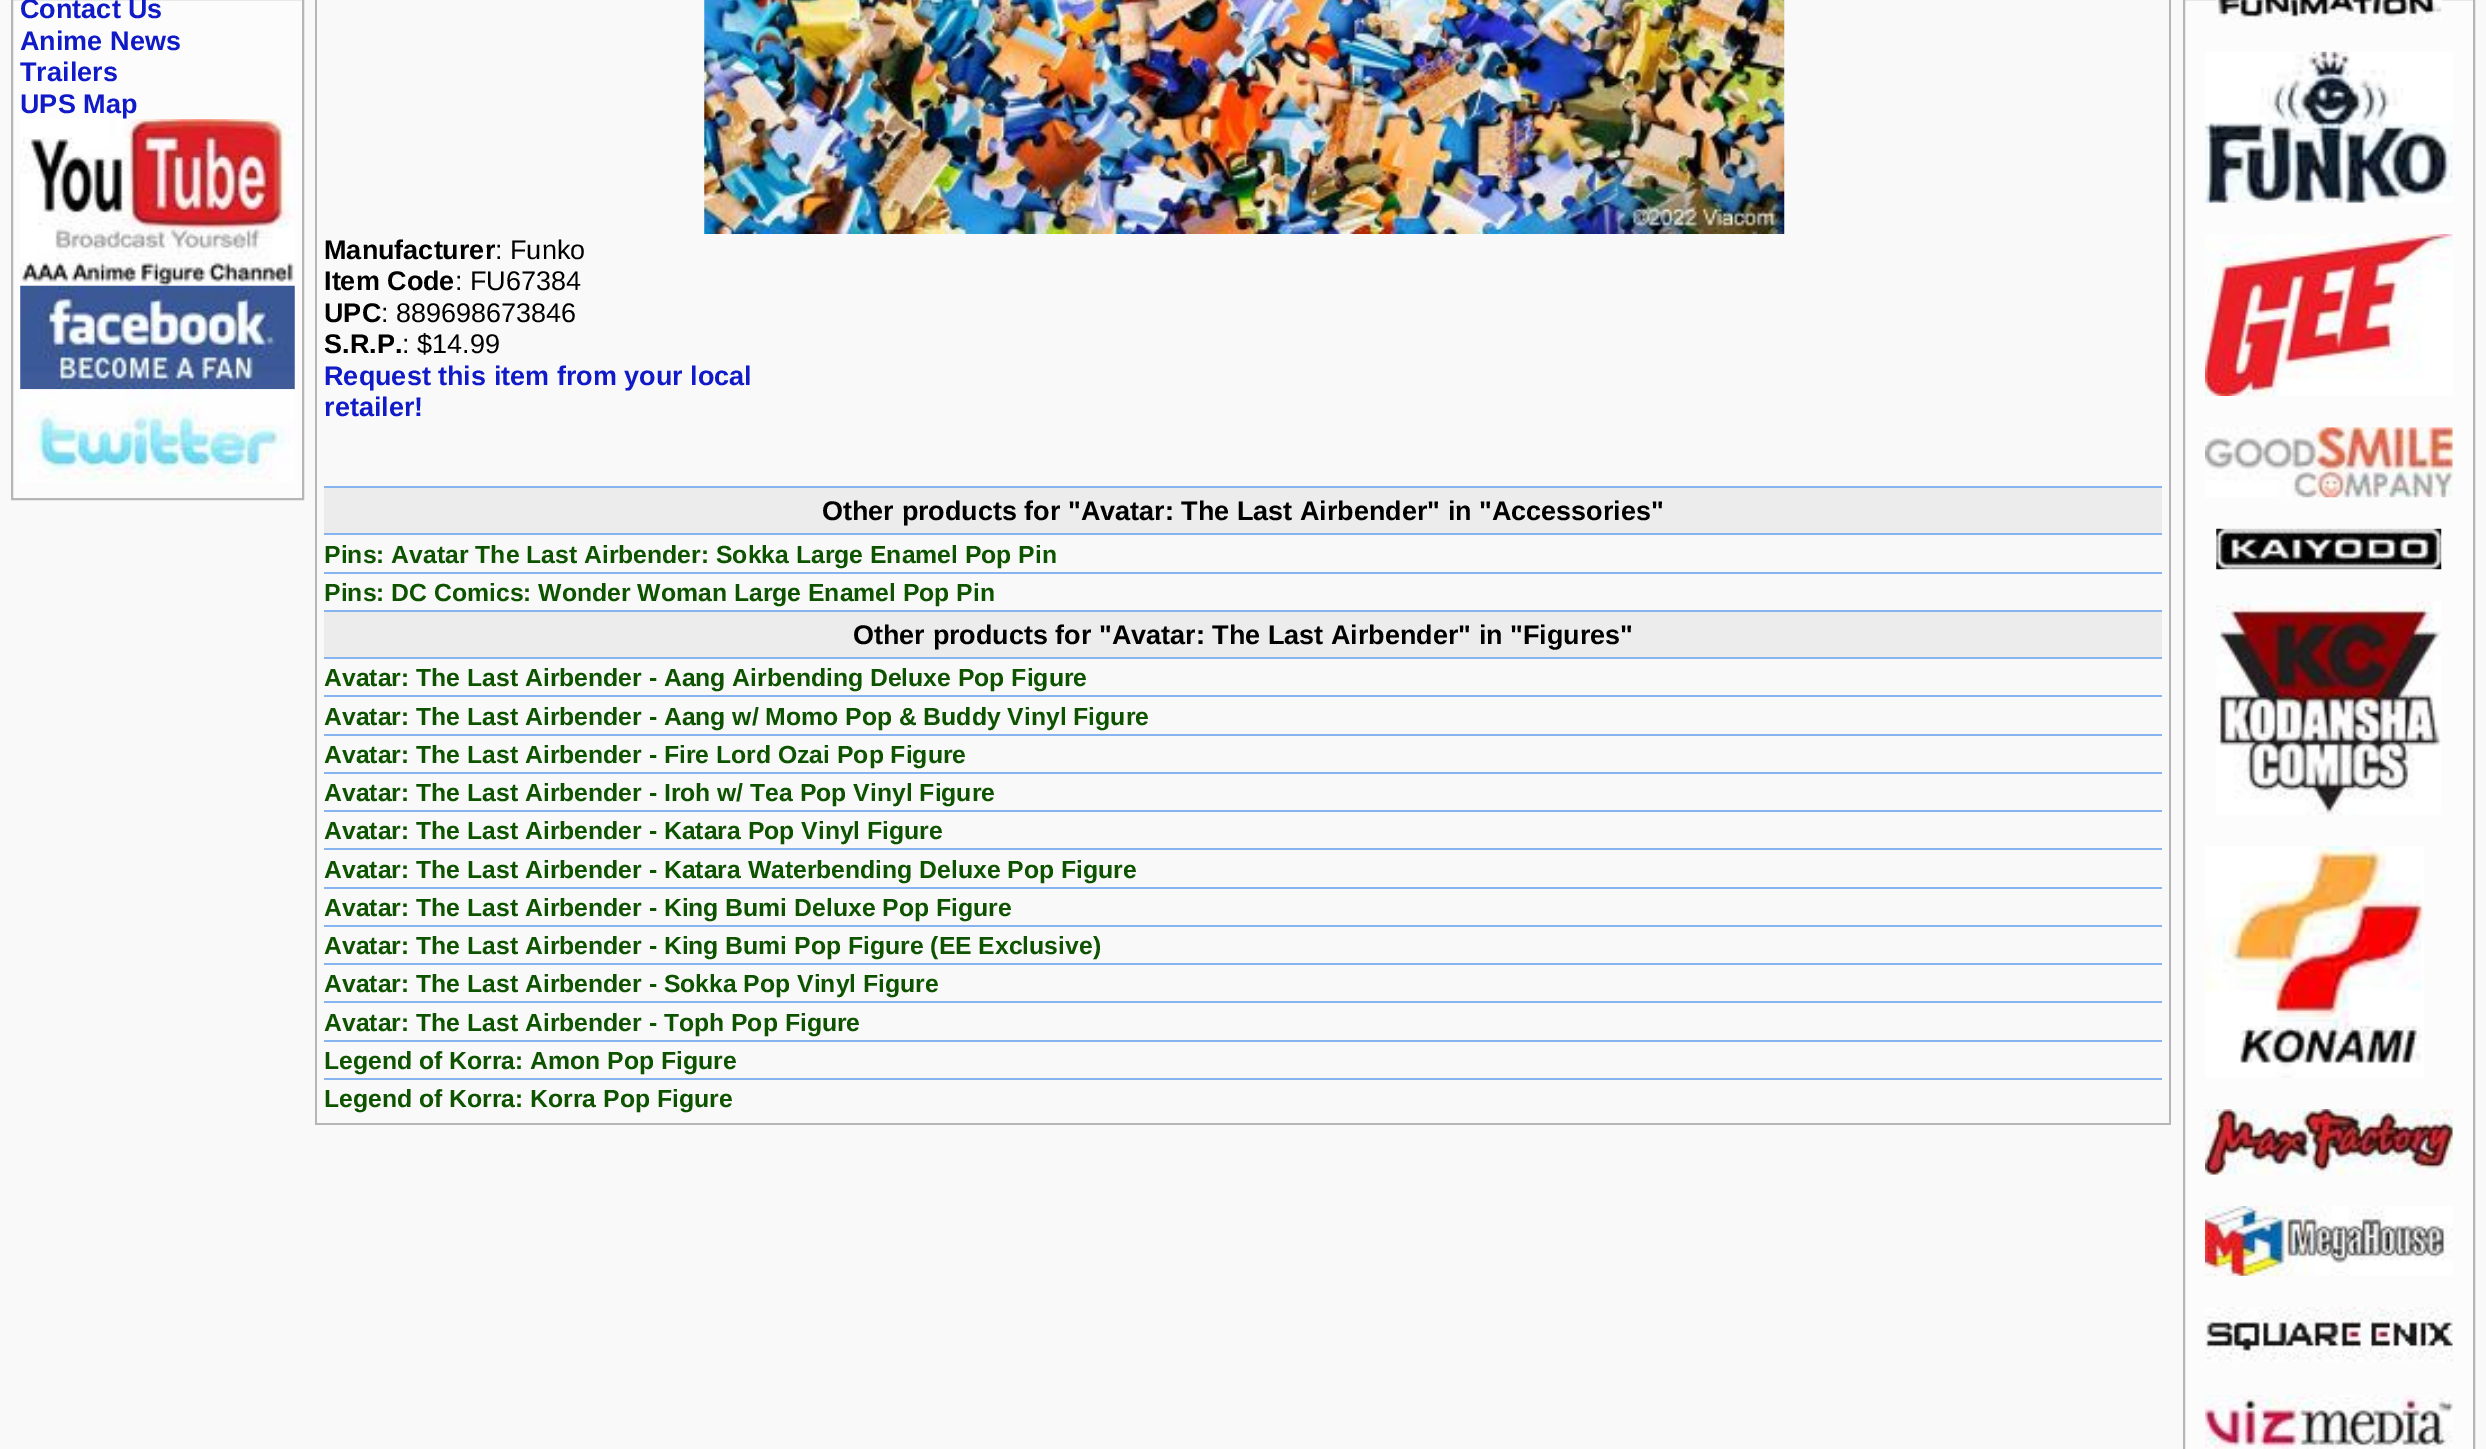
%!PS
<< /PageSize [2486 1449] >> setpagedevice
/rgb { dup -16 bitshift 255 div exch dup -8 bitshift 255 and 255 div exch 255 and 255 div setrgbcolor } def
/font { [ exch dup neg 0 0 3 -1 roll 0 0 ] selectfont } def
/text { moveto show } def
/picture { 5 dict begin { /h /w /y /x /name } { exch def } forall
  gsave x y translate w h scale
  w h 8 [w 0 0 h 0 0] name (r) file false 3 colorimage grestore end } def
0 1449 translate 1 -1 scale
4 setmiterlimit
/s1 { /LiberationSans-Bold 27 font 16#111AC7 rgb } def
/s2 { /LiberationSans-Bold 27 font 16#000000 rgb } def
/s3 { /LiberationSans-Regular 27 font 16#000000 rgb } def
/s4 { /LiberationSans-Bold 24.75 font 16#0D5300 rgb } def
16#F9F9F9 rgb
0 0 2486 1449 rectfill
16#FCFCFC rgb
12 -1 moveto 303 -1 lineto 303 499 lineto 12 499 lineto closepath gsave fill grestore
16#B6B6B6 rgb
2 setlinewidth
stroke
s1
(Contact Us) 20 18 text
(Anime News) 20 50 text
(Trailers) 20 81 text
(UPS Map) 20 113 text
(pic1.raw) 20 119 275 167 picture
(pic2.raw) 20 285 275 105 picture
(pic3.raw) 20 389 275 94 picture
16#FCFCFC rgb
2184 -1 moveto 2474 -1 lineto 2474 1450 lineto 2184 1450 lineto closepath gsave fill grestore
16#B6B6B6 rgb
stroke
(pic4.raw) 2216 0 226 20 picture
(pic5.raw) 2205 51 248 152 picture
(pic6.raw) 2205 234 248 162 picture
(pic7.raw) 2205 427 248 71 picture
(pic8.raw) 2216 528 226 42 picture
(pic9.raw) 2216 601 225 214 picture
(pic10.raw) 2205 846 219 232 picture
(pic11.raw) 2205 1109 248 66 picture
(pic12.raw) 2205 1206 248 70 picture
(pic13.raw) 2205 1307 248 55 picture
(pic14.raw) 2205 1395 248 54 picture
2169 0 2 1125 rectfill
315 1123 1856 2 rectfill
315 0 2 1125 rectfill
(pic15.raw) 704 0 1081 234 picture
s2
(Manufacturer) 324 259 text
s3
(: Funko) 495 259 text
s2
(Item Code) 324 290 text
s3
(: FU67384) 455 290 text
s2
(UPC) 324 322 text
s3
(: 889698673846) 381 322 text
s2
(S.R.P.) 324 353 text
s3
(: $14.99) 402 353 text
s1
(Request this item from your local) 324 385 text
(retailer!) 324 416 text
16#ECECEC rgb
324 488 1838 45 rectfill
16#87B4EE rgb
324 486 1838 2 rectfill
s2
(Other products for "Avatar: The Last Airbender" in "Accessories") 822 520 text
16#87B4EE rgb
324 533 1838 2 rectfill
s4
(Pins: Avatar The Last Airbender: Sokka Large Enamel Pop Pin) 324 563 text
16#87B4EE rgb
324 572 1838 2 rectfill
s4
(Pins: DC Comics: Wonder Woman Large Enamel Pop Pin) 324 601 text
16#ECECEC rgb
324 612 1838 45 rectfill
16#87B4EE rgb
324 610 1838 2 rectfill
s2
(Other products for "Avatar: The Last Airbender" in "Figures") 853 644 text
16#87B4EE rgb
324 657 1838 2 rectfill
s4
(Avatar: The Last Airbender - Aang Airbending Deluxe Pop Figure) 324 686 text
16#87B4EE rgb
324 695 1838 2 rectfill
s4
(Avatar: The Last Airbender - Aang w/ Momo Pop & Buddy Vinyl Figure) 324 725 text
16#87B4EE rgb
324 734 1838 2 rectfill
s4
(Avatar: The Last Airbender - Fire Lord Ozai Pop Figure) 324 763 text
16#87B4EE rgb
324 772 1838 2 rectfill
s4
(Avatar: The Last Airbender - Iroh w/ Tea Pop Vinyl Figure) 324 801 text
16#87B4EE rgb
324 810 1838 2 rectfill
s4
(Avatar: The Last Airbender - Katara Pop Vinyl Figure) 324 839 text
16#87B4EE rgb
324 848 1838 2 rectfill
s4
(Avatar: The Last Airbender - Katara Waterbending Deluxe Pop Figure) 324 878 text
16#87B4EE rgb
324 887 1838 2 rectfill
s4
(Avatar: The Last Airbender - King Bumi Deluxe Pop Figure) 324 916 text
16#87B4EE rgb
324 925 1838 2 rectfill
s4
(Avatar: The Last Airbender - King Bumi Pop Figure \(EE Exclusive\)) 324 954 text
16#87B4EE rgb
324 963 1838 2 rectfill
s4
(Avatar: The Last Airbender - Sokka Pop Vinyl Figure) 324 992 text
16#87B4EE rgb
324 1001 1838 2 rectfill
s4
(Avatar: The Last Airbender - Toph Pop Figure) 324 1031 text
16#87B4EE rgb
324 1040 1838 2 rectfill
s4
(Legend of Korra: Amon Pop Figure) 324 1069 text
16#87B4EE rgb
324 1078 1838 2 rectfill
s4
(Legend of Korra: Korra Pop Figure) 324 1107 text
showpage
